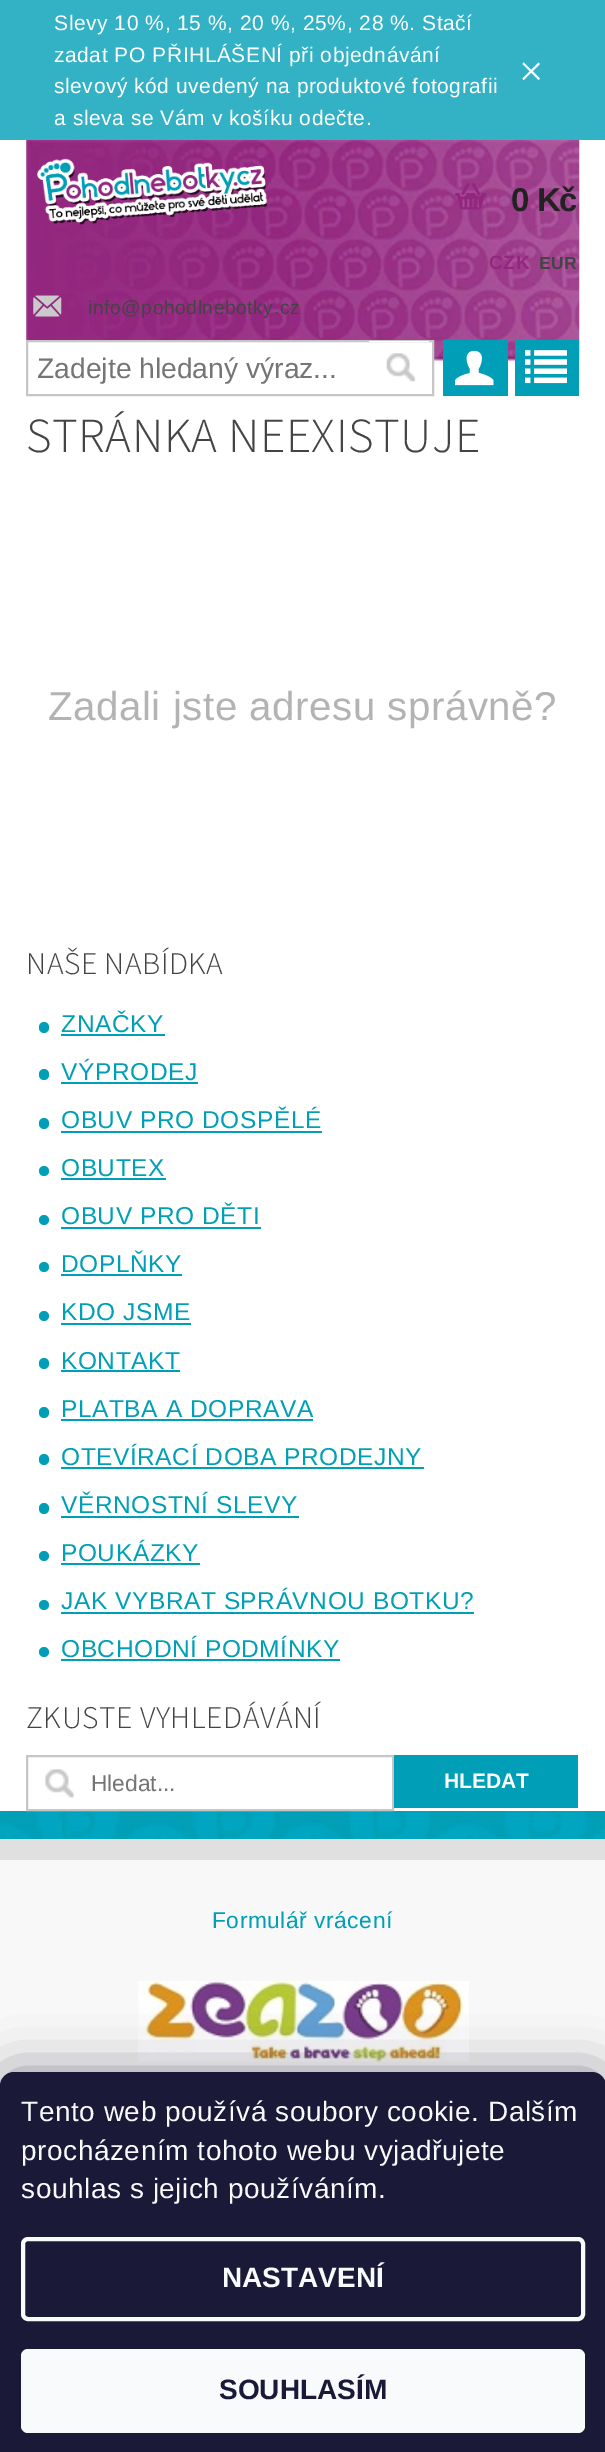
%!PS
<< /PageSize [605 2452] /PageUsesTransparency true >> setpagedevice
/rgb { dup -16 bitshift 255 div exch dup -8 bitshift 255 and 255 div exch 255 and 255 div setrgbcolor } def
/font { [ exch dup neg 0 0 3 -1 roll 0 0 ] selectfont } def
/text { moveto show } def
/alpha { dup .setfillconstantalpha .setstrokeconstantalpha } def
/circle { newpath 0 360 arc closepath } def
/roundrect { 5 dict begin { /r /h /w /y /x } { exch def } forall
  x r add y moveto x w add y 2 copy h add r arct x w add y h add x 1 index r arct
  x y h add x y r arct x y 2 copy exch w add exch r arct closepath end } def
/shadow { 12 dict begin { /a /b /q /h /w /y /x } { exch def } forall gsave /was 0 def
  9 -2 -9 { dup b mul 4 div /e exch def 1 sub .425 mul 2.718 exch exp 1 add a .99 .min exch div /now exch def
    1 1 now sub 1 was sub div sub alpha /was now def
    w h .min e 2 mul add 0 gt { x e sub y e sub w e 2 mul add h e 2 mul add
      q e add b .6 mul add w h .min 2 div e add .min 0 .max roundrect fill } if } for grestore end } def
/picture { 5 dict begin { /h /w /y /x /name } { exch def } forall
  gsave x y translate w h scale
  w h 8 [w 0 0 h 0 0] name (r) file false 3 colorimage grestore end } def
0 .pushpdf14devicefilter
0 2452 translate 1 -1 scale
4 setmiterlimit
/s1 { /LiberationSans-Regular 28.25 font 16#757575 rgb } def
/s2 { /LiberationSans-Regular 22.75 font 16#757575 rgb } def
/s3 { /LiberationSans-Bold 21 font 16#FFFFFF rgb } def
/s4 { /LiberationSans-Bold 28 font 16#F8FAFB rgb } def
/s5 { /LiberationSans-Bold 28 font 16#1A1937 rgb } def
16#FFFFFF rgb
0 0 605 2452 rectfill
16#33B2C5 rgb
0 0 605 140 rectfill
/LiberationSans-Regular 21 font
16#FFFFFF rgb
54 30 moveto 0.55 0 (Slevy 10 %, 15 %, 20 %, 25%, 28 %. Stačí) ashow
54 62 moveto 0.55 0 (zadat PO PŘIHLÁŠENÍ při objednávání) ashow
54 93 moveto 0.55 0 (slevový kód uvedený na produktové fotografii) ashow
54 125 moveto 0.55 0 (a sleva se Vám v košíku odečte.) ashow
523.5 62.5 moveto 540 78.5 lineto 538.5 80 lineto 522.5 64 lineto closepath fill
538.5 62.5 moveto 540 64 lineto 523.5 80 lineto 522.5 78.5 lineto closepath fill
(pic1.raw) 0 1811 605 28 picture
(pic2.raw) 26 140 554 224 picture
(pic3.raw) 37 158 231 67 picture
(pic4.raw) 455 182 32 28 picture
/LiberationSans-Bold 33 font
16#222222 rgb
511 211 moveto -1 0 (0 Kč) ashow
/LiberationSans-Bold 19.25 font
16#93277F rgb
489 269 moveto 0.55 0 (CZK) ashow
/LiberationSans-Bold 17.5 font
16#444444 rgb
539 269 moveto 0.55 0 (EUR) ashow
16#009FB7 rgb
443 340 65 56 rectfill
(pic5.raw) 455 350 39 36 picture
(pic6.raw) 33 295 29 22 picture
/LiberationSans-Regular 19.25 font
16#444444 rgb
88 314 moveto 0.55 0 (info@pohodlnebotky.cz) ashow
16#FFFFFF rgb
28 342 404 22 rectfill
16#C6C6C6 rgb
2 setlinewidth
27 341 406 54 rectstroke
s1
(Zadejte hledaný výraz...) 37 378 text
16#FFFFFF rgb
369 341 60 1 rectfill
(pic7.raw) 386 353 30 29 picture
16#009FB7 rgb
515 340 64 56 rectfill
(pic8.raw) 525 350 42 34 picture
/SourceSans3-Light 49 font
16#444444 rgb
26 452 moveto 0.55 0 (STRÁNKA NEEXISTUJE) ashow
/LiberationSans-Regular 40.25 font
16#B3B3B3 rgb
48 720 moveto 0.55 0 (Zadali jste adresu správně?) ashow
/SourceSans3-Light 31.5 font
16#444444 rgb
26 974 moveto 0.55 0 (NAŠE NABÍDKA) ashow
16#009FB7 rgb
39 1022 10 11 5 roundrect fill
/LiberationSans-Regular 24.5 font
61 1032 moveto 0.55 0 (ZNAČKY) ashow
61 1034 104 2 rectfill
39 1069 10 11 5 roundrect fill
61 1080 moveto 0.55 0 (VÝPRODEJ) ashow
61 1082 137 2 rectfill
39 1118 10 11 5 roundrect fill
61 1128 moveto 0.55 0 (OBUV PRO DOSPĚLÉ) ashow
61 1131 261 2 rectfill
44 1171 5 circle fill
61 1176 moveto 0.55 0 (OBUTEX) ashow
61 1178 105 2 rectfill
44 1220 5 circle fill
61 1224 moveto 0.55 0 (OBUV PRO DĚTI) ashow
61 1227 200 2 rectfill
44 1267 5 circle fill
61 1272 moveto 0.55 0 (DOPLŇKY) ashow
61 1274 121 2 rectfill
44 1316 5 circle fill
61 1320 moveto 0.55 0 (KDO JSME) ashow
61 1323 130 2 rectfill
39 1358 10 11 5 roundrect fill
61 1369 moveto 0.55 0 (KONTAKT) ashow
61 1370 119 2 rectfill
39 1407 10 11 5 roundrect fill
61 1417 moveto 0.55 0 (PLATBA A DOPRAVA) ashow
61 1419 252 2 rectfill
39 1454 10 11 5 roundrect fill
61 1465 moveto 0.55 0 (OTEVÍRACÍ DOBA PRODEJNY) ashow
61 1467 363 2 rectfill
39 1503 10 11 5 roundrect fill
61 1513 moveto 0.55 0 (VĚRNOSTNÍ SLEVY) ashow
61 1516 238 2 rectfill
44 1556 5 circle fill
61 1561 moveto 0.55 0 (POUKÁZKY) ashow
61 1563 139 2 rectfill
44 1605 5 circle fill
61 1609 moveto 0.55 0 (JAK VYBRAT SPRÁVNOU BOTKU?) ashow
61 1612 413 2 rectfill
44 1652 5 circle fill
61 1657 moveto 0.55 0 (OBCHODNÍ PODMÍNKY) ashow
61 1659 279 2 rectfill
/SourceSans3-Light 31.5 font
16#444444 rgb
26 1728 moveto 0.55 0 (ZKUSTE VYHLEDÁVÁNÍ) ashow
(pic9.raw) 45 1769 29 29 picture
16#C6C6C6 rgb
27 1756 366 54 rectstroke
s2
(Hledat...) 91 1791 text
16#009FB7 rgb
394 1755 184 53 rectfill
s3
(HLEDAT) 444 1788 text
16#F8F8F8 rgb
0 1860 605 226 rectfill
16#E0E0E0 rgb
0 1839 605 21 rectfill
/LiberationSans-Regular 22.75 font
16#009FB7 rgb
212 1928 moveto 0.55 0 (Formulář vrácení) ashow
(pic10.raw) 138 1981 331 81 picture
16#1B1939 rgb
0 2072 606 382 14 26 0.5 shadow
16#1A1937 rgb
14 2072 moveto 592 2072 lineto 599.5 2072 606 2078.5 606 2086 curveto 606 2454 lineto 0 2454 lineto 0 2086 lineto 0 2078.5 6.5 2072 14 2072 curveto closepath fill
/LiberationSans-Regular 28 font
16#F8FAFB rgb
21 2121 moveto 0.55 0 (Tento web používá soubory cookie. Dalším) ashow
21 2160 moveto 0.55 0 (procházením tohoto webu vyjadřujete) ashow
21 2198 moveto 0.55 0 (souhlas s jejich používáním.) ashow
4 setlinewidth
23 2239 560 80 5 roundrect stroke
s4
(NASTAVENÍ) 222 2287 text
21 2349 564 84 7 roundrect fill
s5
(SOUHLASÍM) 219 2399 text
.poppdf14devicefilter showpage
